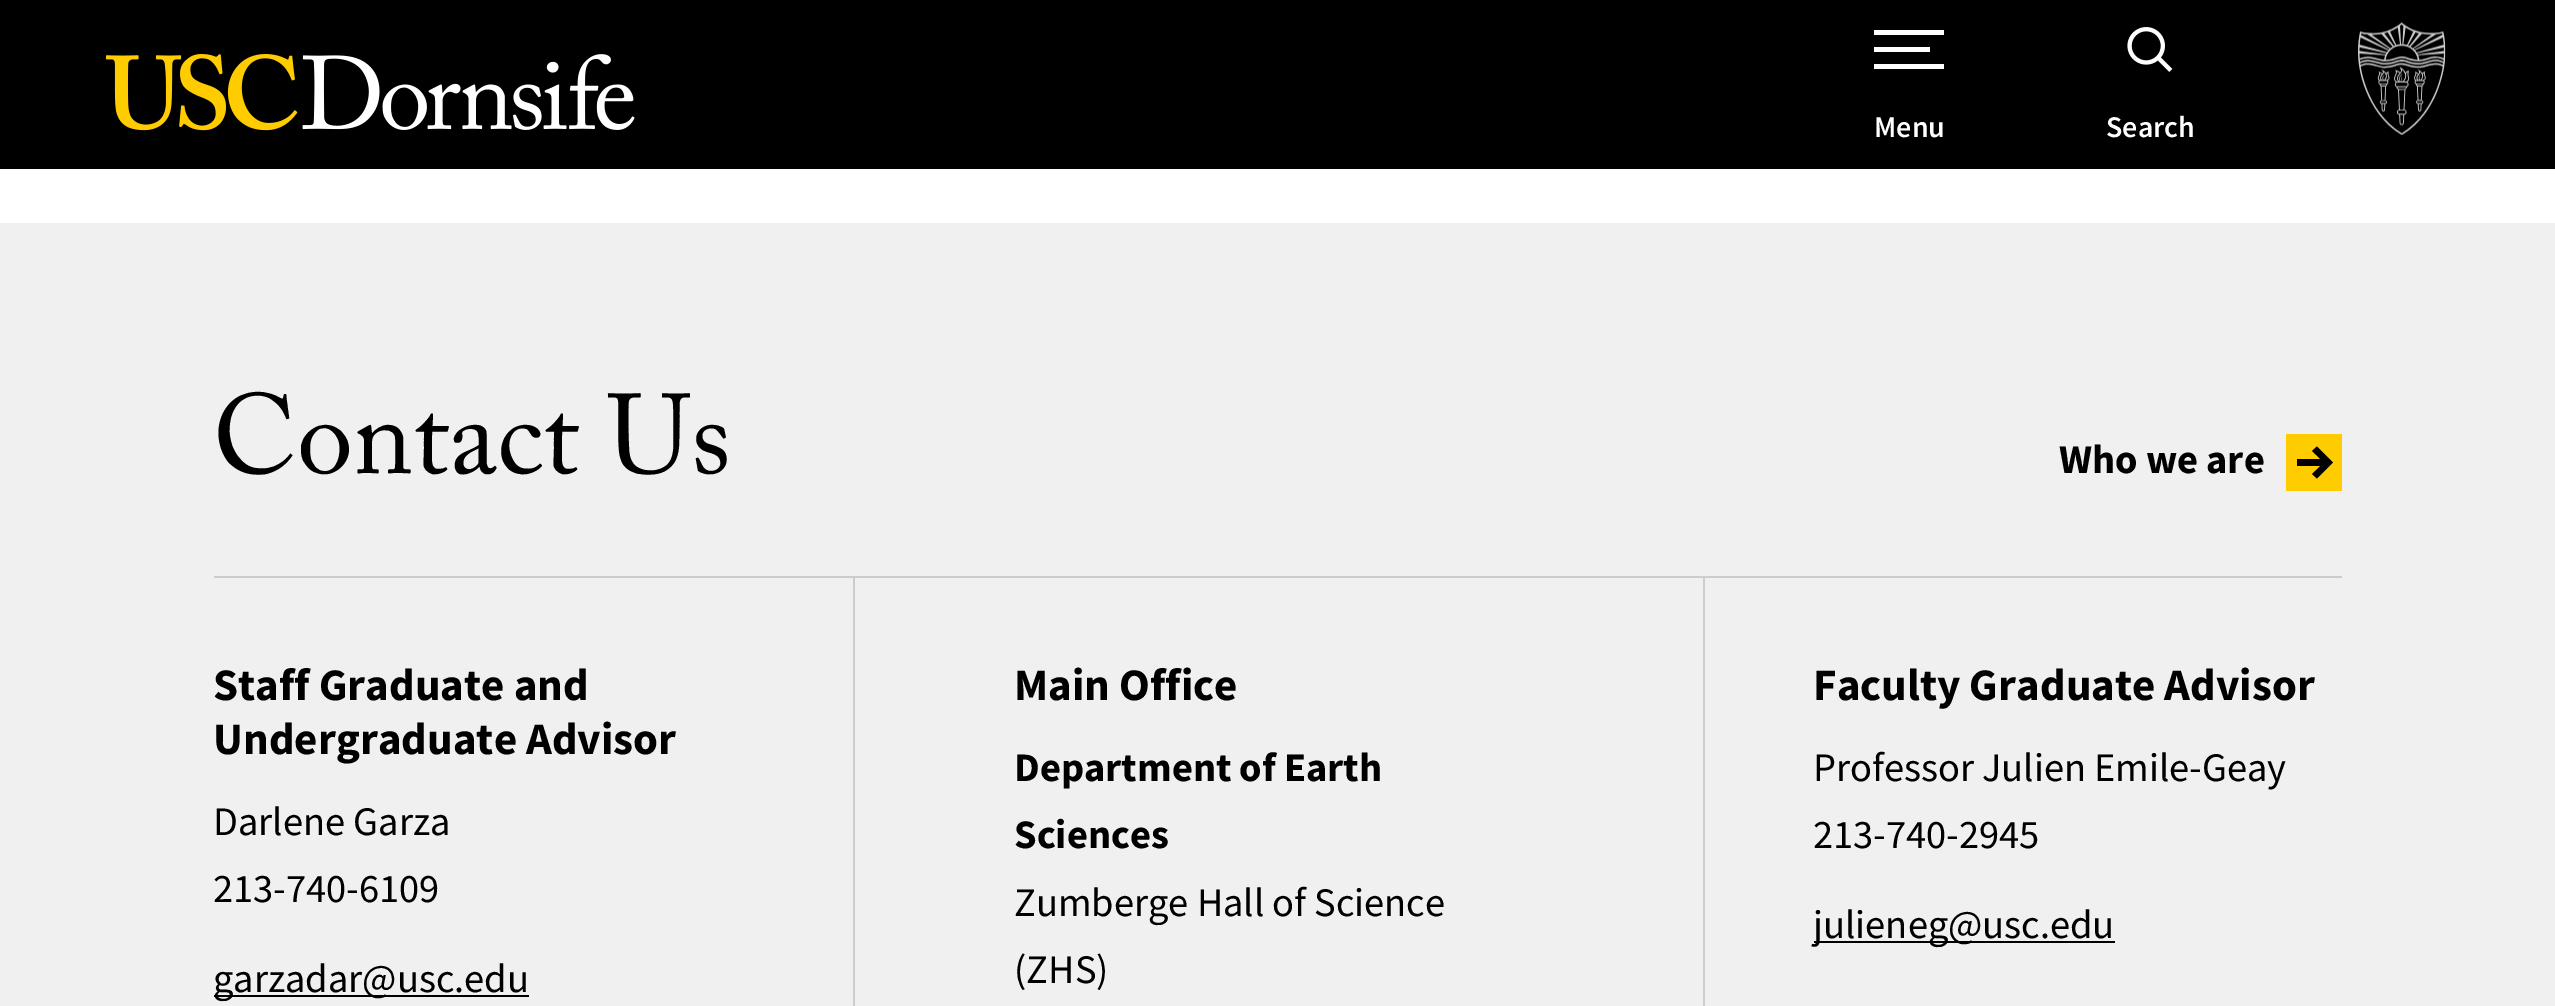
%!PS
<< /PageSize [2555 1006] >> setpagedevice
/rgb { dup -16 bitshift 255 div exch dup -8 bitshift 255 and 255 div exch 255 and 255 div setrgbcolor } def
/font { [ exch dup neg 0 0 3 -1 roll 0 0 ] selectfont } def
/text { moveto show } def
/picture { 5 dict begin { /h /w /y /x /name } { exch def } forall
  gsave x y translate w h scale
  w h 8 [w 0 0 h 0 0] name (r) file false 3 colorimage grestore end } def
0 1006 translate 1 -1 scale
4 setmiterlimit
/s1 { /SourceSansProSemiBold-SemiBold 30 font 16#FFFFFF rgb } def
/s2 { /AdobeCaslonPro-Regular 112.5 font 16#000000 rgb } def
/s3 { /SourceSansPro-Bold 40.5 font 16#000000 rgb } def
/s4 { /SourceSansPro-Bold 45 font 16#000000 rgb } def
/s5 { /SourceSansPro-Regular 40.5 font 16#000000 rgb } def
16#FFFFFF rgb
0 0 2555 1006 rectfill
16#000000 rgb
0 0 2555 169 rectfill
(pic1.raw) 106 54 529 77 picture
16#FFFFFF rgb
1944 64 moveto 1944 69 lineto 1874 69 lineto 1874 64 lineto closepath 1930 47 moveto 1930 52 lineto 1874 52 lineto 1874 47 lineto closepath 1944 30 moveto 1944 35 lineto 1874 35 lineto 1874 30 lineto closepath eofill
s1
(Menu) 1874 137 text
(pic2.raw) 2127 27 46 45 picture
(Search) 2106 137 text
(pic3.raw) 2358 22 88 114 picture
16#F0F0F0 rgb
0 223 2555 783 rectfill
16#CCCCCC rgb
214 576 2128 2 rectfill
s2
(Contact Us) 213 473 text
s3
(Who we are) 2059 473 text
16#FFCC00 rgb
2286 434 56 57 rectfill
16#000000 rgb
2317 478.5 moveto 2333 462.5 lineto 2317 446.5 lineto 2312 451 lineto 2320.5 459 lineto 2297 459 lineto 2297 466 lineto 2320.5 466 lineto 2312 474 lineto closepath eofill
s4
(Staff Graduate and) 213 700 text
(Undergraduate Advisor) 213 754 text
s5
(Darlene Garza) 213 835 text
(213-740-6109) 213 902 text
214 995 315 2 rectfill
(garzadar@usc.edu) 213 992 text
16#CCCCCC rgb
853 578 2 428 rectfill
s4
(Main Office) 1014 700 text
s3
(Department of Earth) 1014 781 text
(Sciences) 1014 848 text
s5
(Zumberge Hall of Science) 1014 916 text
(\(ZHS\)) 1014 983 text
16#CCCCCC rgb
1703 578 2 428 rectfill
s4
(Faculty Graduate Advisor) 1813 700 text
s5
(Professor Julien Emile-Geay) 1813 781 text
(213-740-2945) 1813 848 text
1814 941 301 2 rectfill
(julieneg@usc.edu) 1813 938 text
showpage
